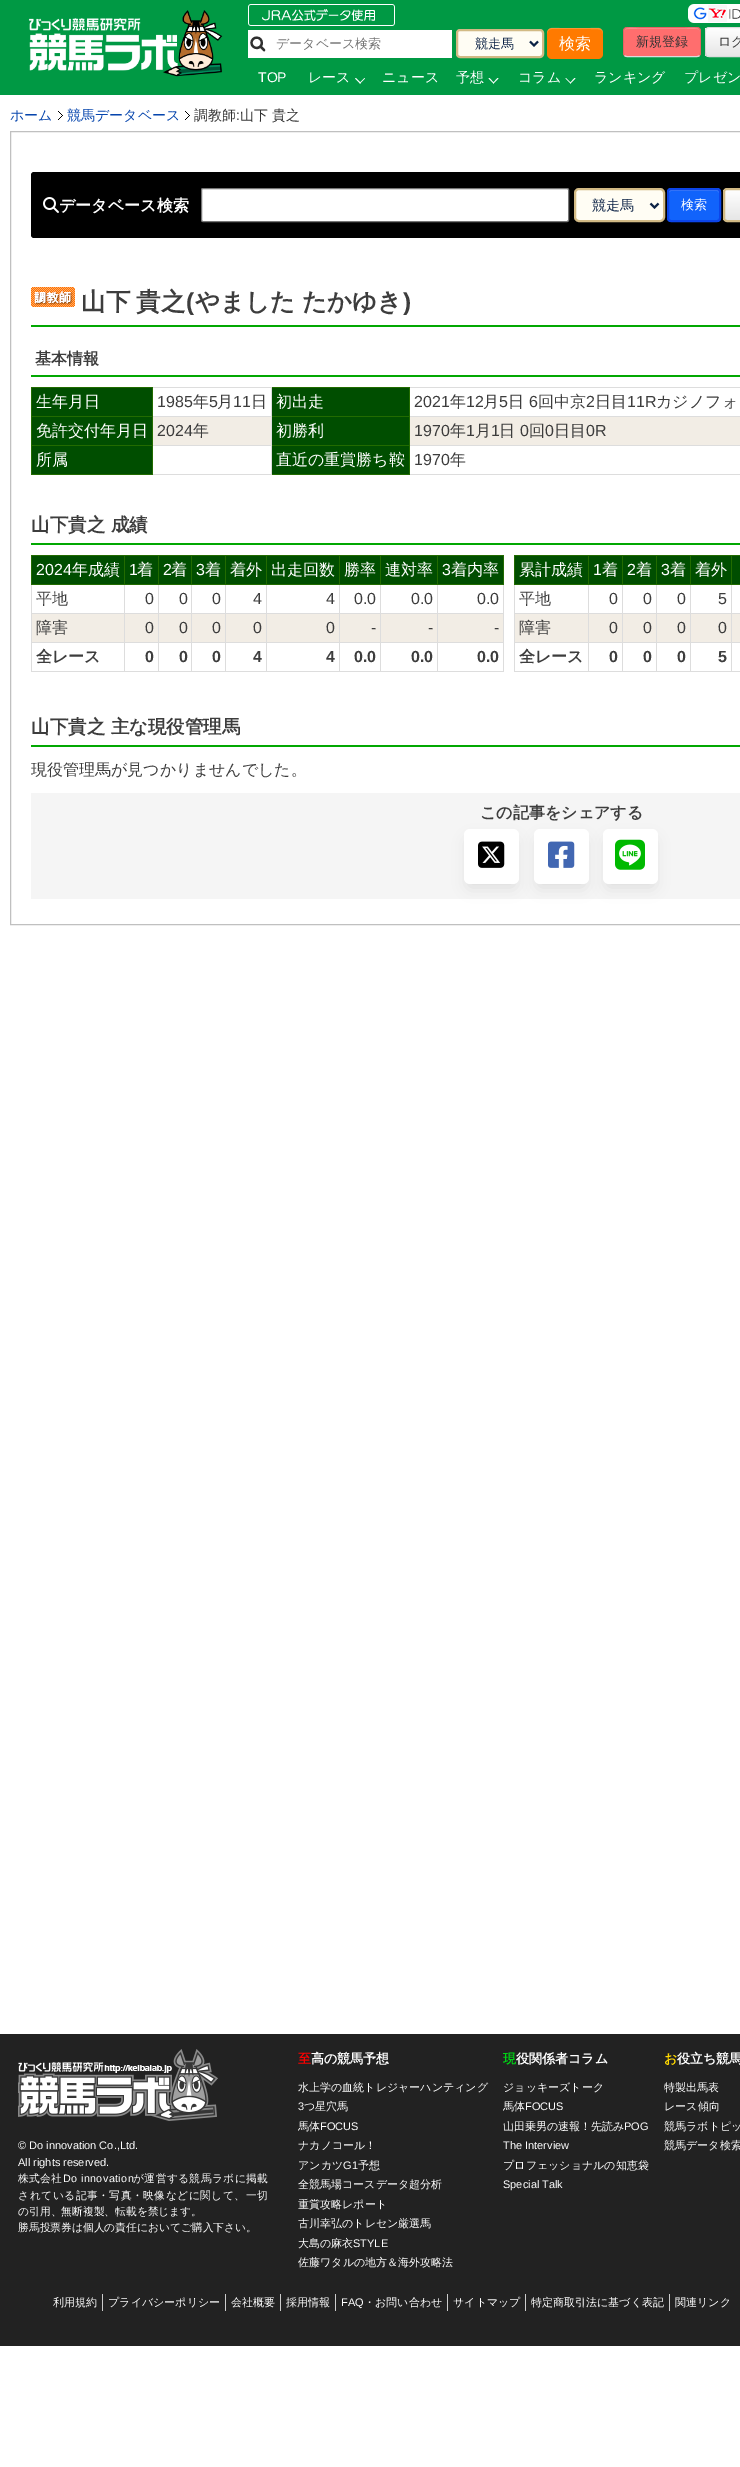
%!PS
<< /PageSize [740 2467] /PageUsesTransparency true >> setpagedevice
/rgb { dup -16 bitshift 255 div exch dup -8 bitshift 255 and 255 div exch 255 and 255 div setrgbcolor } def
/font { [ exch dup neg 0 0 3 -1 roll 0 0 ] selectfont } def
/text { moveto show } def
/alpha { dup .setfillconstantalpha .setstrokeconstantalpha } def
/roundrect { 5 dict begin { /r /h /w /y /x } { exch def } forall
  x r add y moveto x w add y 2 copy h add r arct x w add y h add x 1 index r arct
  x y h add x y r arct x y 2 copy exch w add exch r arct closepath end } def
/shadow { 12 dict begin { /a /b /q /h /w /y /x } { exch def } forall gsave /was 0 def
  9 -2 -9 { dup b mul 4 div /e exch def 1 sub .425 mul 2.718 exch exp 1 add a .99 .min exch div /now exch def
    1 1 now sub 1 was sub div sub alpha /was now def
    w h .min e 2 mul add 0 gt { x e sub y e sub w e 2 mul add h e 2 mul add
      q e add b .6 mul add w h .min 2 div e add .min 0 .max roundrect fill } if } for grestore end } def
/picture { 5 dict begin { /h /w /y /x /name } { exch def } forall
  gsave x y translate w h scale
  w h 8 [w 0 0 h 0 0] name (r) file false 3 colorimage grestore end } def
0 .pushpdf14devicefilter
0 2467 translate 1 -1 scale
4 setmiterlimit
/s1 { /WenQuanYiZenHei-Medium 13 font 16#757575 rgb } def
/s2 { /WenQuanYiZenHei-Medium 13 font 16#0C2245 rgb } def
/s3 { /WenQuanYiZenHei-Medium 16 font 16#FFFFFF rgb } def
/s4 { /WenQuanYiZenHei-Medium 13 font 16#333333 rgb } def
/s5 { /LiberationSans-Regular 14 font 16#FFFFFF rgb } def
/s6 { /WenQuanYiZenHei-Medium 14 font 16#FFFFFF rgb } def
/s7 { /WenQuanYiZenHei-Medium 14 font 16#0645AD rgb } def
/s8 { /WenQuanYiZenHei-Medium 14 font 16#333333 rgb } def
/s9 { /LiberationSans-Regular 14 font 16#333333 rgb } def
/s10 { /WenQuanYiZenHei-Bold 16 font 16#FFFFFF rgb } def
/s11 { /WenQuanYiZenHei-Medium 14 font 16#0C2245 rgb } def
/s12 { /WenQuanYiZenHei-Medium 13 font 16#FFFFFF rgb } def
/s13 { /LiberationSans-Bold 24.5 font 16#3D3D3D rgb } def
/s14 { /WenQuanYiZenHei-Bold 24.5 font 16#3D3D3D rgb } def
/s15 { /WenQuanYiZenHei-Bold 16 font 16#3D3D3D rgb } def
/s16 { /LiberationSans-Regular 16 font 16#3D3D3D rgb } def
/s17 { /WenQuanYiZenHei-Medium 16 font 16#3D3D3D rgb } def
/s18 { /WenQuanYiZenHei-Bold 18.5 font 16#3D3D3D rgb } def
/s19 { /LiberationSans-Regular 16 font 16#FFFFFF rgb } def
/s20 { /LiberationSans-Bold 16 font 16#3D3D3D rgb } def
/s21 { /WenQuanYiZenHei-Bold 13 font 16#FF0000 rgb } def
/s22 { /WenQuanYiZenHei-Bold 13 font 16#FFFFFF rgb } def
/s23 { /WenQuanYiZenHei-Medium 11 font 16#FFFFFF rgb } def
/s24 { /LiberationSans-Regular 11 font 16#FFFFFF rgb } def
/s25 { /WenQuanYiZenHei-Bold 13 font 16#00D314 rgb } def
/s26 { /WenQuanYiZenHei-Bold 13 font 16#FFD800 rgb } def
/s27 { /WenQuanYiZenHei-Medium 10.75 font 16#FFFFFF rgb } def
16#FFFFFF rgb
0 0 740 2467 rectfill
16#009944 rgb
0 0 740 95 rectfill
(pic1.raw) 28 10 195 67 picture
(pic2.raw) 248 4 147 22 picture
16#FFFFFF rgb
248 30 204 28 rectfill
(pic3.raw) 250 36 16 16 picture
s1
(データベース検索) 276 48 text
16#FFFDF4 rgb
457 30 86 27 3 roundrect gsave fill grestore
16#D2BA85 rgb
2 setlinewidth
stroke
16#0C2245 rgb
530 41.5 moveto 534 45.5 lineto 538 41.5 lineto stroke
(競走馬) 475 48 text
16#FF7A00 rgb
547 28 56 31 5 roundrect fill
0.2 alpha
16#FFFFFF rgb
552 29 moveto 590 29 lineto 600 29 603 29 603 34 curveto 603 26 597 28 590 28 curveto 560 28 lineto 554 28 547 26 547 34 curveto 547 31 549 29 552 29 curveto closepath fill
1 alpha
s3
(検索) 559 49 text
(pic4.raw) 688 4 52 19 picture
16#FF6E6E rgb
623 27 78 30 4 roundrect fill
16#FF8B8B rgb
627 29 moveto 697 29 lineto 699 29 700 30 700 32 curveto 700 25 689 28 685 28 curveto 639 28 lineto 635 28 624 25 624 32 curveto 624 30 625 29 627 29 curveto closepath fill
16#DCDCDC rgb
1 setlinewidth
699.5 55.5 moveto 699 56 698 56.5 697 56.5 curveto 627 56.5 lineto 626 56.5 625 56 624.5 55.5 curveto stroke
0.1 alpha
16#000000 rgb
624.5 55.5 moveto 622.5 53.5 623.5 45 623.5 42 curveto 623.5 25.5 621 27.5 638.5 27.5 curveto 685.5 27.5 lineto 703 27.5 700.5 25.5 700.5 42 curveto 700.5 45 701.5 53.5 699.5 55.5 curveto stroke
1 alpha
s4
(新規登録) 636 46 text
16#F5F5F5 rgb
705 27 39 30 4 roundrect fill
gsave
705 27 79 30 4 roundrect clip newpath
gsave 705 28 moveto 740 28 lineto 740 56 lineto 705 56 lineto closepath clip newpath
<< /ShadingType 2 /ColorSpace /DeviceRGB /Coords [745 28 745 56] /Extend [true true] /Function << /FunctionType 2 /Domain [0 1] /C0 [1 1 1] /C1 [0.902 0.902 0.902] /N 1 >> >> shfill grestore
grestore
16#DCDCDC rgb
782.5 55.5 moveto 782 56 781 56.5 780 56.5 curveto 709 56.5 lineto 708 56.5 707 56 706.5 55.5 curveto stroke
0.1 alpha
16#000000 rgb
706.5 55.5 moveto 704.5 53.5 705.5 45 705.5 42 curveto 705.5 25 703 27.5 721 27.5 curveto 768 27.5 lineto 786 27.5 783.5 25 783.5 42 curveto 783.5 45 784.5 53.5 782.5 55.5 curveto stroke
1 alpha
s4
(ログ) 718 46 text
s5
(TOP) 258 82 text
s6
(レース) 308 82 text
364.5 78 moveto 365 78.5 lineto 360 83.5 lineto 359.5 83 lineto closepath fill
356 78 moveto 361 83 lineto 360 83.5 lineto 355 78.5 lineto closepath fill
(ニュース) 382 82 text
(予想) 456 82 text
497.5 78 moveto 498.5 78.5 lineto 493.5 83.5 lineto 493 83 lineto closepath fill
489.5 78 moveto 494 83 lineto 493.5 83.5 lineto 488.5 78.5 lineto closepath fill
(コラム) 518 82 text
574.5 78 moveto 575.5 78.5 lineto 570.5 83.5 lineto 570 83 lineto closepath fill
566 78 moveto 571 83 lineto 570.5 83.5 lineto 565.5 78.5 lineto closepath fill
(ランキング) 594 82 text
(プレゼン) 684 82 text
s7
(ホーム) 10 120 text
(pic5.raw) 58 111 5 9 picture
(競馬データベース) 67 120 text
(pic5.raw) 185 111 5 9 picture
s8
(調教師) 194 120 text
s9
(:) 236 120 text
s8
(山下 貴之) 240 120 text
16#C0C0C0 rgb
10.5 131.5 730 793 rectstroke
16#000000 rgb
31 172 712 66 3 roundrect fill
(pic6.raw) 43 197 16 16 picture
s10
(データベース検索) 59 211 text
201.5 188.5 367 33 1.5 roundrect gsave fill grestore
16#767676 rgb
stroke
16#FFFDF4 rgb
575 189 89 32 4 roundrect gsave fill grestore
16#D2BA85 rgb
2 setlinewidth
stroke
16#0C2245 rgb
650.5 203.5 moveto 654.5 207.5 lineto 658.5 203.5 lineto stroke
s11
(競走馬) 592 210 text
16#1163FB rgb
667 188 54 34 4 roundrect fill
16#4182FC rgb
671 191 moveto 717 191 lineto 718 191 719 192 719 193 curveto 719 188 713 190 709 190 curveto 679 190 lineto 675 190 669 188 669 193 curveto 669 192 670 191 671 191 curveto closepath fill
16#0C45E9 rgb
668 189 52 32 3 roundrect stroke
s12
(検索) 681 209 text
gsave 723 190 moveto 740 190 lineto 740 220 lineto 723 220 lineto closepath clip newpath
<< /ShadingType 2 /ColorSpace /DeviceRGB /Coords [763 190 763 220] /Extend [true true] /Function << /FunctionType 2 /Domain [0 1] /C0 [1 1 1] /C1 [0.902 0.902 0.902] /N 1 >> >> shfill grestore
16#D2BA85 rgb
724 189 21 32 3 roundrect stroke
(pic7.raw) 31 287 44 20 picture
16#01A801 rgb
31 325 709 2 rectfill
/WenQuanYiZenHei-Bold 24.5 font
16#3D3D3D rgb
81 310 moveto -1 0 32 (山下 貴之) widthshow
s13
(\() 186 310 text
s14
(やました) 195 310 text
(たかゆき) 302 310 text
s13
(\)) 403 310 text
16#01A801 rgb
31 375 709 2 rectfill
s15
(基本情報) 35 364 text
16#DDDDDD rgb
410 387 330 1 rectfill
153 474 587 1 rectfill
16#004E00 rgb
32 388 120 28 rectfill
16#226B00 rgb
271 387 139 1 rectfill
16#DDDDDD rgb
152 387 120 1 rectfill
16#226B00 rgb
31 387 122 1 rectfill
16#F2EDE5 rgb
153 417 587 28 rectfill
16#226B00 rgb
409 445 1 30 rectfill
16#DDDDDD rgb
409 445 331 1 rectfill
16#226B00 rgb
409 416 1 30 rectfill
16#DDDDDD rgb
409 416 331 1 rectfill
16#226B00 rgb
409 387 1 30 rectfill
271 474 139 1 rectfill
16#DDDDDD rgb
271 445 1 30 rectfill
16#226B00 rgb
271 445 139 1 rectfill
16#DDDDDD rgb
271 416 1 30 rectfill
16#226B00 rgb
271 416 139 1 rectfill
16#DDDDDD rgb
271 387 1 30 rectfill
16#226B00 rgb
31 416 122 1 rectfill
31 445 122 1 rectfill
152 445 1 30 rectfill
16#DDDDDD rgb
152 445 120 1 rectfill
16#226B00 rgb
152 416 1 30 rectfill
16#DDDDDD rgb
152 416 120 1 rectfill
16#226B00 rgb
152 387 1 30 rectfill
31 474 122 1 rectfill
31 445 1 30 rectfill
31 416 1 30 rectfill
31 387 1 30 rectfill
s3
(生年月日) 36 407 text
s16
(1985) 157 407 text
s17
(年) 193 407 text
s16
(5) 209 407 text
s17
(月) 217 407 text
s16
(11) 233 407 text
s17
(日) 251 407 text
16#004E00 rgb
272 388 137 28 rectfill
s3
(初出走) 276 407 text
s16
(2021) 414 407 text
s17
(年) 450 407 text
s16
(12) 466 407 text
s17
(月) 483 407 text
s16
(5) 499 407 text
s17
(日) 508 407 text
s16
(6) 529 407 text
s17
(回中京) 538 407 text
s16
(2) 586 407 text
s17
(日目) 595 407 text
s16
(11R) 627 407 text
s17
(カジノフォ) 656 407 text
16#004E00 rgb
32 417 120 28 rectfill
s3
(免許交付年月日) 36 436 text
s16
(2024) 157 436 text
s17
(年) 193 436 text
16#004E00 rgb
272 417 137 28 rectfill
s3
(初勝利) 276 436 text
s16
(1970) 414 436 text
s17
(年) 450 436 text
s16
(1) 466 436 text
s17
(月) 475 436 text
s16
(1) 491 436 text
s17
(日) 499 436 text
s16
(0) 520 436 text
s17
(回) 529 436 text
s16
(0) 545 436 text
s17
(日目) 554 436 text
s16
(0R) 586 436 text
16#004E00 rgb
32 446 120 28 rectfill
s3
(所属) 36 465 text
16#004E00 rgb
272 446 137 28 rectfill
s3
(直近の重賞勝ち鞍) 276 465 text
s16
(1970) 414 465 text
s17
(年) 450 465 text
16#01A801 rgb
31 543 709 2 rectfill
s18
(山下貴之 成績) 31 531 text
16#DDDDDD rgb
503 585 1 87 rectfill
31 671 473 1 rectfill
31 585 1 87 rectfill
16#004E00 rgb
32 556 92 28 rectfill
16#226B00 rgb
437 555 67 1 rectfill
503 555 1 30 rectfill
16#DDDDDD rgb
437 613 67 1 rectfill
16#F2EDE5 rgb
32 614 471 28 rectfill
16#DDDDDD rgb
437 642 67 1 rectfill
437 642 1 30 rectfill
380 642 58 1 rectfill
437 613 1 30 rectfill
380 613 58 1 rectfill
437 584 1 30 rectfill
16#226B00 rgb
437 584 67 1 rectfill
437 555 1 30 rectfill
380 555 58 1 rectfill
16#DDDDDD rgb
380 642 1 30 rectfill
339 642 42 1 rectfill
380 613 1 30 rectfill
339 613 42 1 rectfill
380 584 1 30 rectfill
16#226B00 rgb
380 584 58 1 rectfill
380 555 1 30 rectfill
339 555 42 1 rectfill
16#DDDDDD rgb
339 642 1 30 rectfill
266 642 74 1 rectfill
339 613 1 30 rectfill
266 613 74 1 rectfill
339 584 1 30 rectfill
16#226B00 rgb
339 584 42 1 rectfill
339 555 1 30 rectfill
266 555 74 1 rectfill
16#DDDDDD rgb
266 642 1 30 rectfill
225 642 42 1 rectfill
266 613 1 30 rectfill
225 613 42 1 rectfill
266 584 1 30 rectfill
16#226B00 rgb
266 584 74 1 rectfill
266 555 1 30 rectfill
225 555 42 1 rectfill
16#DDDDDD rgb
225 642 1 30 rectfill
191 642 35 1 rectfill
225 613 1 30 rectfill
191 613 35 1 rectfill
225 584 1 30 rectfill
16#226B00 rgb
225 584 42 1 rectfill
225 555 1 30 rectfill
191 555 35 1 rectfill
16#DDDDDD rgb
191 642 1 30 rectfill
158 642 34 1 rectfill
191 613 1 30 rectfill
158 613 34 1 rectfill
191 584 1 30 rectfill
16#226B00 rgb
191 584 35 1 rectfill
191 555 1 30 rectfill
158 555 34 1 rectfill
16#DDDDDD rgb
158 642 1 30 rectfill
124 642 35 1 rectfill
158 613 1 30 rectfill
124 613 35 1 rectfill
158 584 1 30 rectfill
16#226B00 rgb
158 584 34 1 rectfill
158 555 1 30 rectfill
124 555 35 1 rectfill
16#DDDDDD rgb
124 642 1 30 rectfill
31 642 94 1 rectfill
124 613 1 30 rectfill
31 613 94 1 rectfill
124 584 1 30 rectfill
16#226B00 rgb
124 584 35 1 rectfill
124 555 1 30 rectfill
31 555 94 1 rectfill
31 584 94 1 rectfill
31 555 1 30 rectfill
s19
(2024) 36 575 text
s3
(年成績) 72 575 text
16#004E00 rgb
125 556 33 28 rectfill
s19
(1) 129 575 text
s3
(着) 137 575 text
16#004E00 rgb
159 556 32 28 rectfill
s19
(2) 163 575 text
s3
(着) 171 575 text
16#004E00 rgb
192 556 33 28 rectfill
s19
(3) 196 575 text
s3
(着) 205 575 text
16#004E00 rgb
226 556 40 28 rectfill
s3
(着外) 230 575 text
16#004E00 rgb
267 556 72 28 rectfill
s3
(出走回数) 271 575 text
16#004E00 rgb
340 556 40 28 rectfill
s3
(勝率) 344 575 text
16#004E00 rgb
381 556 56 28 rectfill
s3
(連対率) 385 575 text
16#004E00 rgb
438 556 65 28 rectfill
s19
(3) 442 575 text
s3
(着内率) 451 575 text
s17
(平地) 36 604 text
s16
(0) 145 604 text
(0) 179 604 text
(0) 212 604 text
(4) 253 604 text
(4) 326 604 text
(0.0) 354 604 text
(0.0) 411 604 text
(0.0) 477 604 text
s17
(障害) 36 633 text
s16
(0) 145 633 text
(0) 179 633 text
(0) 212 633 text
(0) 253 633 text
(0) 326 633 text
(-) 371 633 text
(-) 428 633 text
(-) 494 633 text
s15
(全レース) 36 662 text
s20
(0) 145 662 text
(0) 179 662 text
(0) 212 662 text
(4) 253 662 text
(4) 326 662 text
(0.0) 354 662 text
(0.0) 411 662 text
(0.0) 477 662 text
16#DDDDDD rgb
514 671 226 1 rectfill
514 585 1 87 rectfill
16#004E00 rgb
515 556 73 28 rectfill
16#226B00 rgb
731 555 9 1 rectfill
16#DDDDDD rgb
731 613 9 1 rectfill
16#F2EDE5 rgb
515 614 225 28 rectfill
16#DDDDDD rgb
731 642 9 1 rectfill
731 642 1 30 rectfill
690 642 42 1 rectfill
731 613 1 30 rectfill
690 613 42 1 rectfill
731 584 1 30 rectfill
16#226B00 rgb
731 584 9 1 rectfill
731 555 1 30 rectfill
690 555 42 1 rectfill
16#DDDDDD rgb
690 642 1 30 rectfill
656 642 35 1 rectfill
690 613 1 30 rectfill
656 613 35 1 rectfill
690 584 1 30 rectfill
16#226B00 rgb
690 584 42 1 rectfill
690 555 1 30 rectfill
656 555 35 1 rectfill
16#DDDDDD rgb
656 642 1 30 rectfill
622 642 35 1 rectfill
656 613 1 30 rectfill
622 613 35 1 rectfill
656 584 1 30 rectfill
16#226B00 rgb
656 584 35 1 rectfill
656 555 1 30 rectfill
622 555 35 1 rectfill
16#DDDDDD rgb
622 642 1 30 rectfill
588 642 35 1 rectfill
622 613 1 30 rectfill
588 613 35 1 rectfill
622 584 1 30 rectfill
16#226B00 rgb
622 584 35 1 rectfill
622 555 1 30 rectfill
588 555 35 1 rectfill
16#DDDDDD rgb
588 642 1 30 rectfill
514 642 75 1 rectfill
588 613 1 30 rectfill
514 613 75 1 rectfill
588 584 1 30 rectfill
16#226B00 rgb
588 584 35 1 rectfill
588 555 1 30 rectfill
514 555 75 1 rectfill
514 584 75 1 rectfill
514 555 1 30 rectfill
s3
(累計成績) 519 575 text
16#004E00 rgb
589 556 33 28 rectfill
s19
(1) 593 575 text
s3
(着) 602 575 text
16#004E00 rgb
623 556 33 28 rectfill
s19
(2) 627 575 text
s3
(着) 636 575 text
16#004E00 rgb
657 556 33 28 rectfill
s19
(3) 661 575 text
s3
(着) 670 575 text
16#004E00 rgb
691 556 40 28 rectfill
s3
(着外) 695 575 text
16#004E00 rgb
732 556 8 28 rectfill
s17
(平地) 519 604 text
s16
(0) 609 604 text
(0) 643 604 text
(0) 677 604 text
(5) 718 604 text
s17
(障害) 519 633 text
s16
(0) 609 633 text
(0) 643 633 text
(0) 677 633 text
(0) 718 633 text
s15
(全レース) 519 662 text
s20
(0) 609 662 text
(0) 643 662 text
(0) 677 662 text
(5) 718 662 text
16#01A801 rgb
31 745 709 2 rectfill
s18
(山下貴之 主な現役管理馬) 31 733 text
s17
(現役管理馬が見つかりませんでした。) 31 775 text
16#F5F5F5 rgb
31 793 709 106 rectfill
s15
(この記事をシェアする) 480 818 text
16#000000 rgb
468 840 47 47 2 7.5 0.1 shadow
16#FFFFFF rgb
464 829 55 55 6 roundrect fill
(pic8.raw) 478 841 27 27 picture
16#000000 rgb
538 840 47 47 2 7.5 0.1 shadow
16#FFFFFF rgb
534 829 55 55 6 roundrect fill
(pic9.raw) 548 841 27 27 picture
16#000000 rgb
607 840 47 47 2 7.5 0.1 shadow
16#FFFFFF rgb
603 829 55 55 6 roundrect fill
(pic10.raw) 615 839 30 31 picture
16#222222 rgb
0 2034 740 312 rectfill
s21
(至) 298 2063 text
s22
(高の競馬予想) 311 2063 text
s23
(水上学の血統トレジャーハンティング) 298 2091 text
s24
(3) 298 2110 text
s23
(つ星穴馬) 304 2110 text
(馬体) 298 2130 text
s24
(FOCUS) 320 2130 text
s23
(ナカノコール！) 298 2149 text
(アンカツ) 298 2169 text
s24
(G1) 343 2169 text
s23
(予想) 358 2169 text
(全競馬場コースデータ超分析) 298 2188 text
(重賞攻略レポート) 298 2208 text
(古川幸弘のトレセン厳選馬) 298 2227 text
(大島の麻衣) 298 2247 text
s24
(STYLE) 353 2247 text
s23
(佐藤ワタルの地方＆海外攻略法) 298 2266 text
s25
(現) 503 2063 text
s22
(役関係者コラム) 516 2063 text
s23
(ジョッキーズトーク) 503 2091 text
(馬体) 503 2110 text
s24
(FOCUS) 525 2110 text
s23
(山田乗男の速報！先読み) 503 2130 text
s24
(POG) 624 2130 text
(The Interview) 503 2149 text
s23
(プロフェッショナルの知恵袋) 503 2169 text
s24
(Special Talk) 503 2188 text
s26
(お) 664 2063 text
s22
(役立ち競馬) 677 2063 text
s23
(特製出馬表) 664 2091 text
(レース傾向) 664 2110 text
(競馬ラボトピッ) 664 2130 text
(競馬データ検索) 664 2149 text
(pic11.raw) 18 2049 200 72 picture
s24
(© Do innovation Co.,Ltd.) 18 2149 text
(All rights reserved.) 18 2166 text
/WenQuanYiZenHei-Medium 10.75 font
18 2182 moveto 0.4 0 (株式会社) ashow
/LiberationSans-Regular 10.75 font
63 2182 moveto 0.4 0 (Do innovation) ashow
/WenQuanYiZenHei-Medium 10.75 font
133 2182 moveto 0.4 0 (が運営する競馬ラボに掲載) ashow
18 2199 moveto 0.5 0 (されている記事・写真・映像などに関して、一切) ashow
(の引用、無断複製、転載を禁じます。) 18 2215 text
(勝馬投票券は個人の責任においてご購入下さい。) 18 2231 text
16#CCCCCC rgb
102 2294 1 17 rectfill
s23
(利用規約) 53 2306 text
16#CCCCCC rgb
225 2294 1 17 rectfill
s23
(プライバシーポリシー) 108 2306 text
16#CCCCCC rgb
280 2294 1 17 rectfill
s23
(会社概要) 231 2306 text
16#CCCCCC rgb
335 2294 1 17 rectfill
s23
(採用情報) 286 2306 text
16#CCCCCC rgb
447 2294 1 17 rectfill
s24
(FAQ) 341 2306 text
s23
(・お問い合わせ) 364 2306 text
16#CCCCCC rgb
525 2294 1 17 rectfill
s23
(サイトマップ) 453 2306 text
16#CCCCCC rgb
669 2294 1 17 rectfill
s23
(特定商取引法に基づく表記) 531 2306 text
(関連リンク) 675 2306 text
.poppdf14devicefilter showpage
